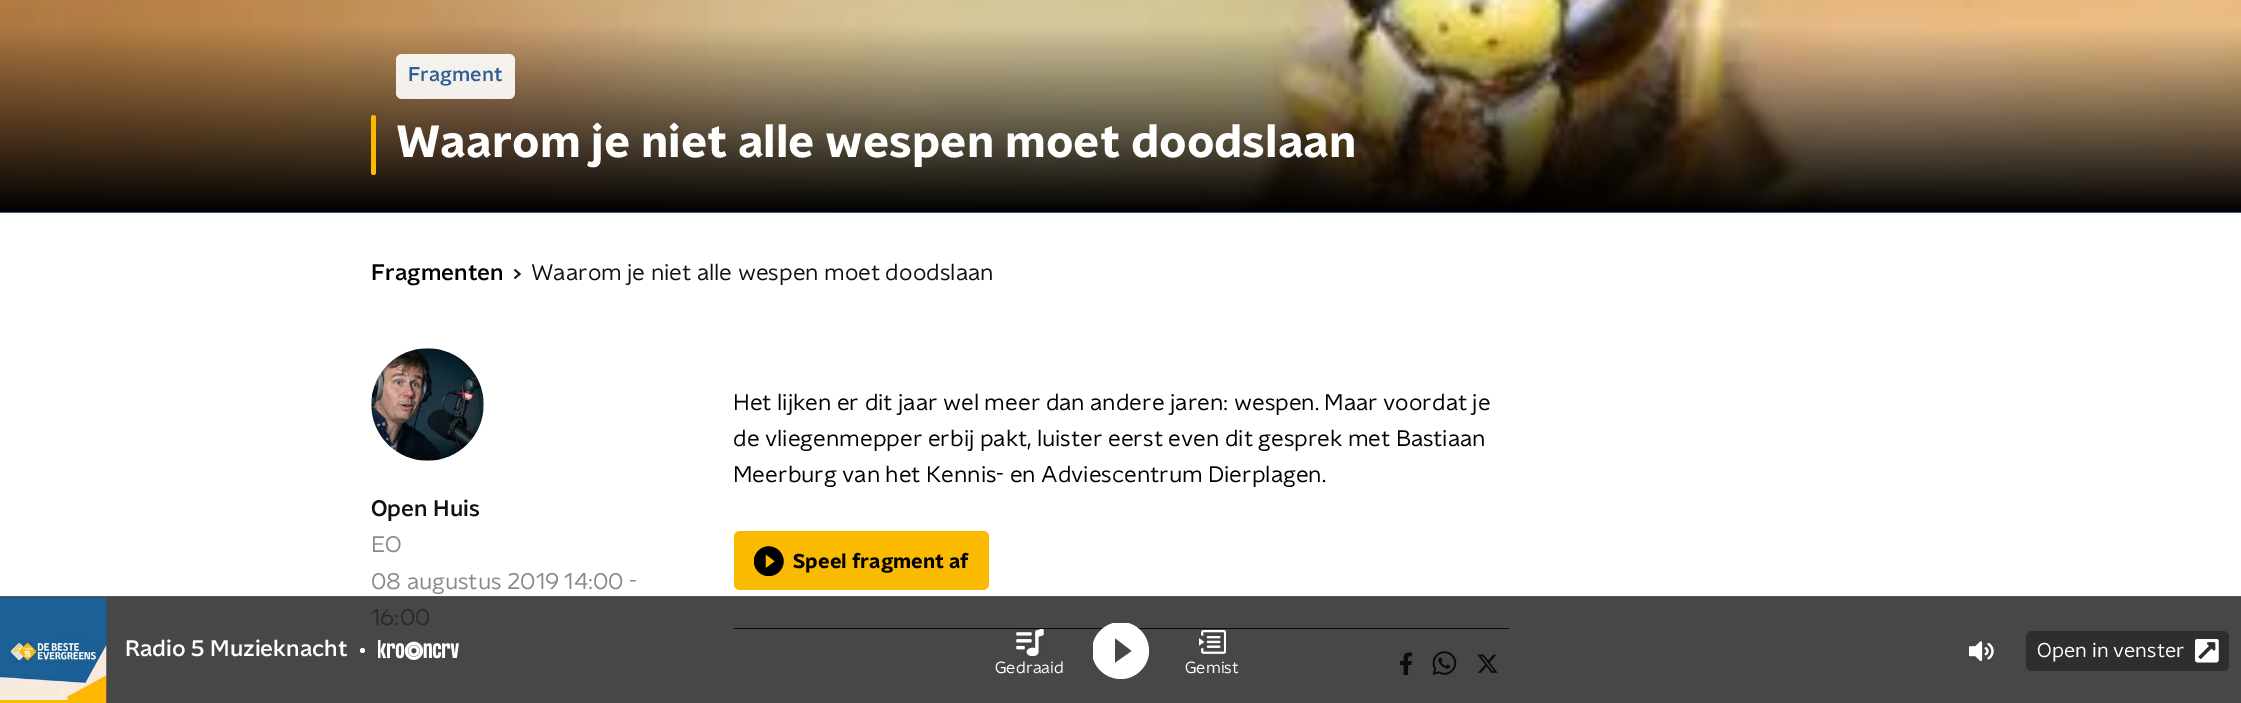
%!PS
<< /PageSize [2241 703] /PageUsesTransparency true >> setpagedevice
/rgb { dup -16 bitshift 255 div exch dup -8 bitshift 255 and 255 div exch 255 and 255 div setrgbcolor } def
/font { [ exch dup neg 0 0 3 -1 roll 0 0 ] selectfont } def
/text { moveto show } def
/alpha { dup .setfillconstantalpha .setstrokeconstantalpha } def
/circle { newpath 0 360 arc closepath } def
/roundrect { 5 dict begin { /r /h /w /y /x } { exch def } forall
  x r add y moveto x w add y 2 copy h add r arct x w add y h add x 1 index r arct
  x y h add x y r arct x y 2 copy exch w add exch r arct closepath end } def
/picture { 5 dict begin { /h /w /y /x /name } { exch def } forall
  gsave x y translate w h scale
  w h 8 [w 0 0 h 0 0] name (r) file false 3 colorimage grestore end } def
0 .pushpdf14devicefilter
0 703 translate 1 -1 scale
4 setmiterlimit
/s1 { /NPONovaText-Medium 20 font 16#325D92 rgb } def
/s2 { /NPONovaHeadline-Bold 45 font 16#FFFFFF rgb } def
/s3 { /NPONovaText-Medium 22.5 font 16#000000 rgb } def
/s4 { /NPONovaText-Regular 22.5 font 16#101010 rgb } def
/s5 { /NPONovaText-Medium 22.5 font 16#101010 rgb } def
/s6 { /NPONovaText-Regular 22.5 font 16#888888 rgb } def
/s7 { /NPONovaText-Regular 22.5 font 16#292929 rgb } def
/s8 { /NPONovaText-Regular 22.5 font 16#000000 rgb } def
/s9 { /NPONovaHeadline-Bold 20 font 16#000000 rgb } def
/s10 { /NPONovaText-Medium 22.5 font 16#FFFFFF rgb } def
/s11 { /NPONovaText-Regular 20 font 16#FFFFFF rgb } def
/s12 { /NPONovaText-Regular 16.25 font 16#FFFFFF rgb } def
16#FFFFFF rgb
0 0 2241 703 rectfill
16#474747 rgb
0 597 2241 106 rectfill
16#325D92 rgb
0 212 2241 1 rectfill
(pic1.raw) 0 0 2241 212 picture
0.9 alpha
16#FFFFFF rgb
396 54 119 45 6 roundrect fill
1 alpha
s1
(Fragment) 408 81 text
16#FABA00 rgb
371 115 5 60 2.5 roundrect fill
s2
(Waarom je niet alle wespen moet doodslaan) 396 157 text
s3
(Fragmenten) 371 280 text
(pic2.raw) 513 269 9 11 picture
s4
(Waarom je niet alle wespen moet doodslaan) 531 280 text
(pic3.raw) 371 348 113 113 picture
s5
(Open Huis) 371 516 text
s6
(EO) 371 552 text
(08 augustus 2019 14:00 -) 371 589 text
s7
(16:00) 371 625 text
s8
(Het lijken er dit jaar wel meer dan andere jaren: wespen. Maar voordat je) 733 410 text
(de vliegenmepper erbij pakt, luister eerst even dit gesprek met Bastiaan) 733 446 text
(Meerburg van het Kennis- en Adviescentrum Dierplagen.) 733 482 text
16#FABA00 rgb
734 531 255 59 6 roundrect fill
(pic4.raw) 754 546 30 30 picture
s9
(Speel fragment af) 793 568 text
16#0B0B0B rgb
734 628 775 1 rectfill
(pic5.raw) 1400 652 13 23 picture
(pic6.raw) 1432 651 25 24 picture
(pic7.raw) 1477 654 21 19 picture
16#565656 rgb
0 596 2241 1 rectfill
(pic8.raw) 0 597 107 106 picture
16#FABA00 rgb
0 700 106 3 rectfill
s10
(Radio 5 Muzieknacht) 125 656 text
362.5 650.5 2.5 circle fill
(pic9.raw) 378 640 81 20 picture
(pic10.raw) 1969 641 25 20 picture
16#2E2E2E rgb
2026 631 203 40 6 roundrect fill
s11
(Open in venster) 2037 657 text
(pic11.raw) 2195 639 24 24 picture
(pic12.raw) 1016 629 28 27 picture
s12
(Gedraaid) 995 673 text
gsave
1093 623 56 56 rectclip
1121 622 moveto 1105 622 1092 635 1092 651 curveto 1092 666 1105 679 1121 679 curveto 1136 679 1149 666 1149 651 curveto 1149 635 1136 622 1121 622 curveto closepath 1115 663 moveto 1115 638 lineto 1132 651 lineto closepath fill
grestore
(pic13.raw) 1199 630 27 24 picture
(Gemist) 1185 673 text
.poppdf14devicefilter showpage
